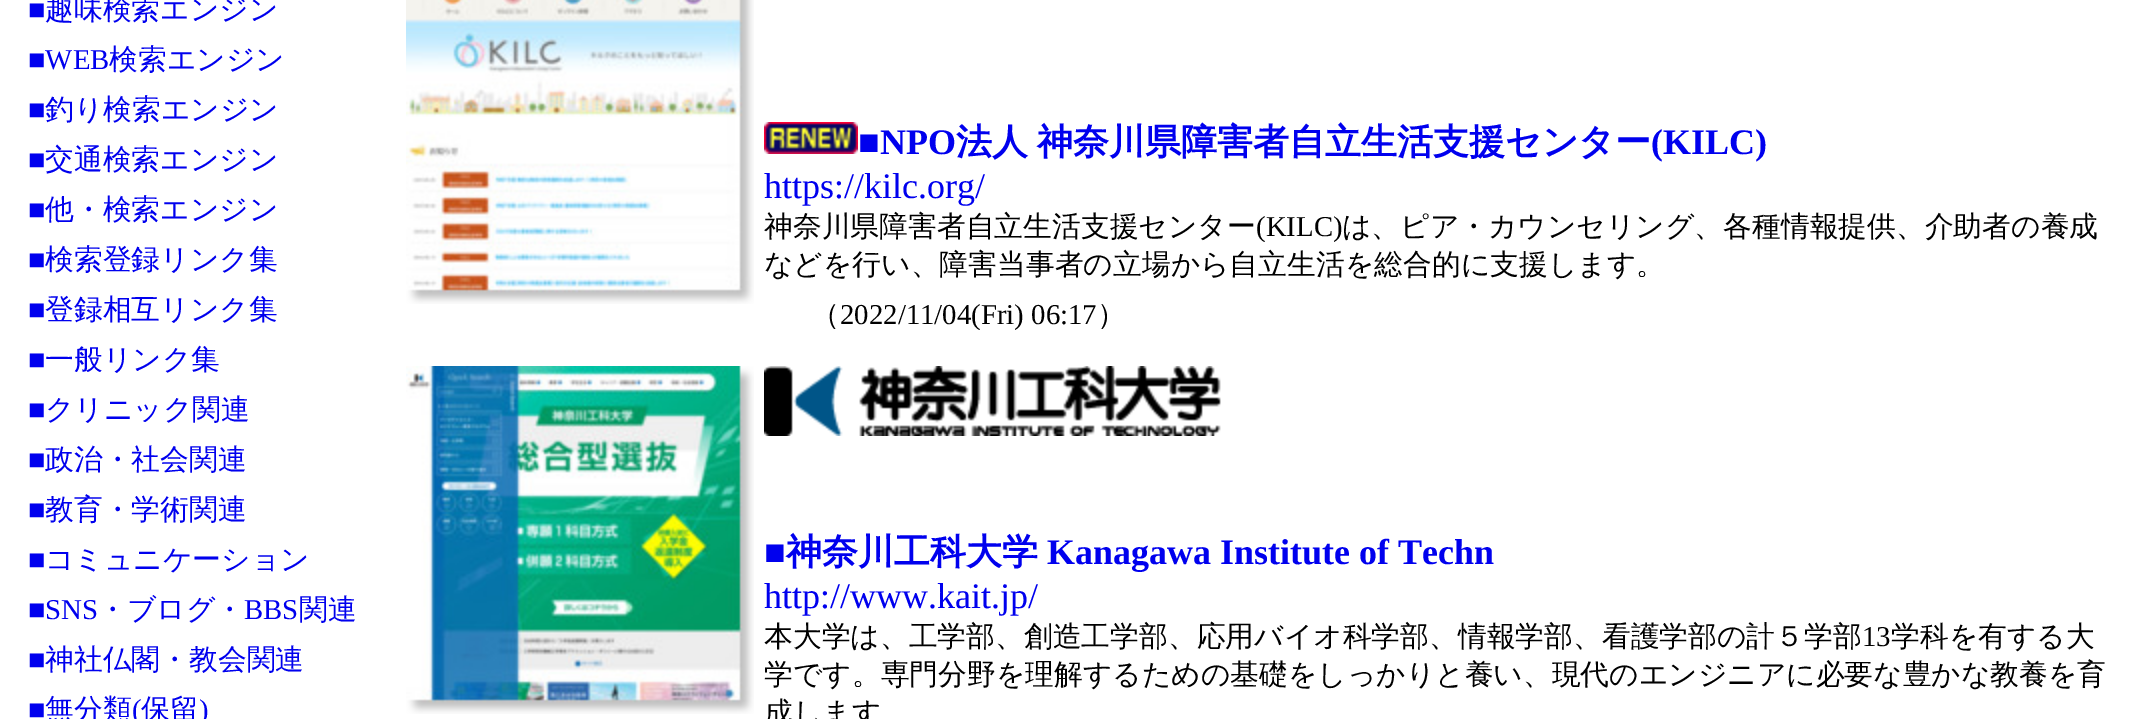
%!PS
<< /PageSize [2142 719] >> setpagedevice
/rgb { dup -16 bitshift 255 div exch dup -8 bitshift 255 and 255 div exch 255 and 255 div setrgbcolor } def
/font { [ exch dup neg 0 0 3 -1 roll 0 0 ] selectfont } def
/text { moveto show } def
/picture { 5 dict begin { /h /w /y /x /name } { exch def } forall
  gsave x y translate w h scale
  w h 8 [w 0 0 h 0 0] name (r) file false 3 colorimage grestore end } def
0 719 translate 1 -1 scale
4 setmiterlimit
/s1 { /LiberationSerif-Regular 28.8 font 16#0000EE rgb } def
/s2 { /WenQuanYiZenHei-Medium 28.8 font 16#0000EE rgb } def
/s3 { /LiberationSerif-Bold 36 font 16#0000EE rgb } def
/s4 { /LiberationSerif-Regular 36 font 16#0000EE rgb } def
/s5 { /WenQuanYiZenHei-Medium 28.8 font 16#000000 rgb } def
/s6 { /LiberationSerif-Regular 28.8 font 16#000000 rgb } def
/s7 { /WenQuanYiZenHei-Bold 36 font 16#0000EE rgb } def
16#FFFFFF rgb
0 0 2142 719 rectfill
s1
(■) 28 19 text
s2
(趣味検索エンジン) 45 19 text
s1
(■WEB) 28 69 text
s2
(検索エンジン) 109 69 text
s1
(■) 28 119 text
s2
(釣り検索エンジン) 45 119 text
s1
(■) 28 169 text
s2
(交通検索エンジン) 45 169 text
s1
(■) 28 219 text
s2
(他・検索エンジン) 45 219 text
s1
(■) 28 269 text
s2
(検索登録リンク集) 45 269 text
s1
(■) 28 319 text
s2
(登録相互リンク集) 45 319 text
s1
(■) 28 369 text
s2
(一般リンク集) 45 369 text
s1
(■) 28 419 text
s2
(クリニック関連) 45 419 text
s1
(■) 28 469 text
s2
(政治・社会関連) 45 469 text
s1
(■) 28 519 text
s2
(教育・学術関連) 45 519 text
s1
(■) 28 569 text
s2
(コミュニケーション) 45 569 text
s1
(■SNS) 28 619 text
s2
(・ブログ・) 98 619 text
s1
(BBS) 244 619 text
s2
(関連) 299 619 text
s1
(■) 28 669 text
s2
(神社仏閣・教会関連) 45 669 text
s1
(■) 28 719 text
s2
(無分類) 45 719 text
s1
(\() 132 719 text
s2
(保留) 141 719 text
s1
(\)) 199 719 text
(pic1.raw) 406 0 348 304 picture
(pic2.raw) 764 122 94 32 picture
s3
(■NPO) 858 154 text
/WenQuanYiZenHei-Bold 36 font
956 154 moveto -2 0 32 (法人 神奈川県障害者自立生活支援センター) widthshow
s3
(\(KILC\)) 1651 154 text
s4
(https://kilc.org/) 764 198 text
s5
(神奈川県障害者自立生活支援センター) 764 236 text
s6
(\(KILC\)) 1256 236 text
s5
(は、ピア・カウンセリング、各種情報提供、介助者の養成) 1342 236 text
(などを行い、障害当事者の立場から自立生活を総合的に支援します。) 764 274 text
(（) 811 324 text
s6
(2022/11/04\(Fri\) 06:17) 840 324 text
s5
(）) 1097 324 text
(pic3.raw) 406 366 348 348 picture
(pic4.raw) 764 366 457 70 picture
s3
(■) 764 564 text
s7
(神奈川工科大学) 786 564 text
s3
(Kanagawa Institute of Techn) 1047 564 text
s4
(http://www.kait.jp/) 764 608 text
s5
(本大学は、工学部、創造工学部、応用バイオ科学部、情報学部、看護学部の計５学部) 764 646 text
s6
(13) 1862 646 text
s5
(学科を有する大) 1891 646 text
(学です。専門分野を理解するための基礎をしっかりと養い、現代のエンジニアに必要な豊かな教養を育) 764 684 text
(成します) 764 722 text
showpage
